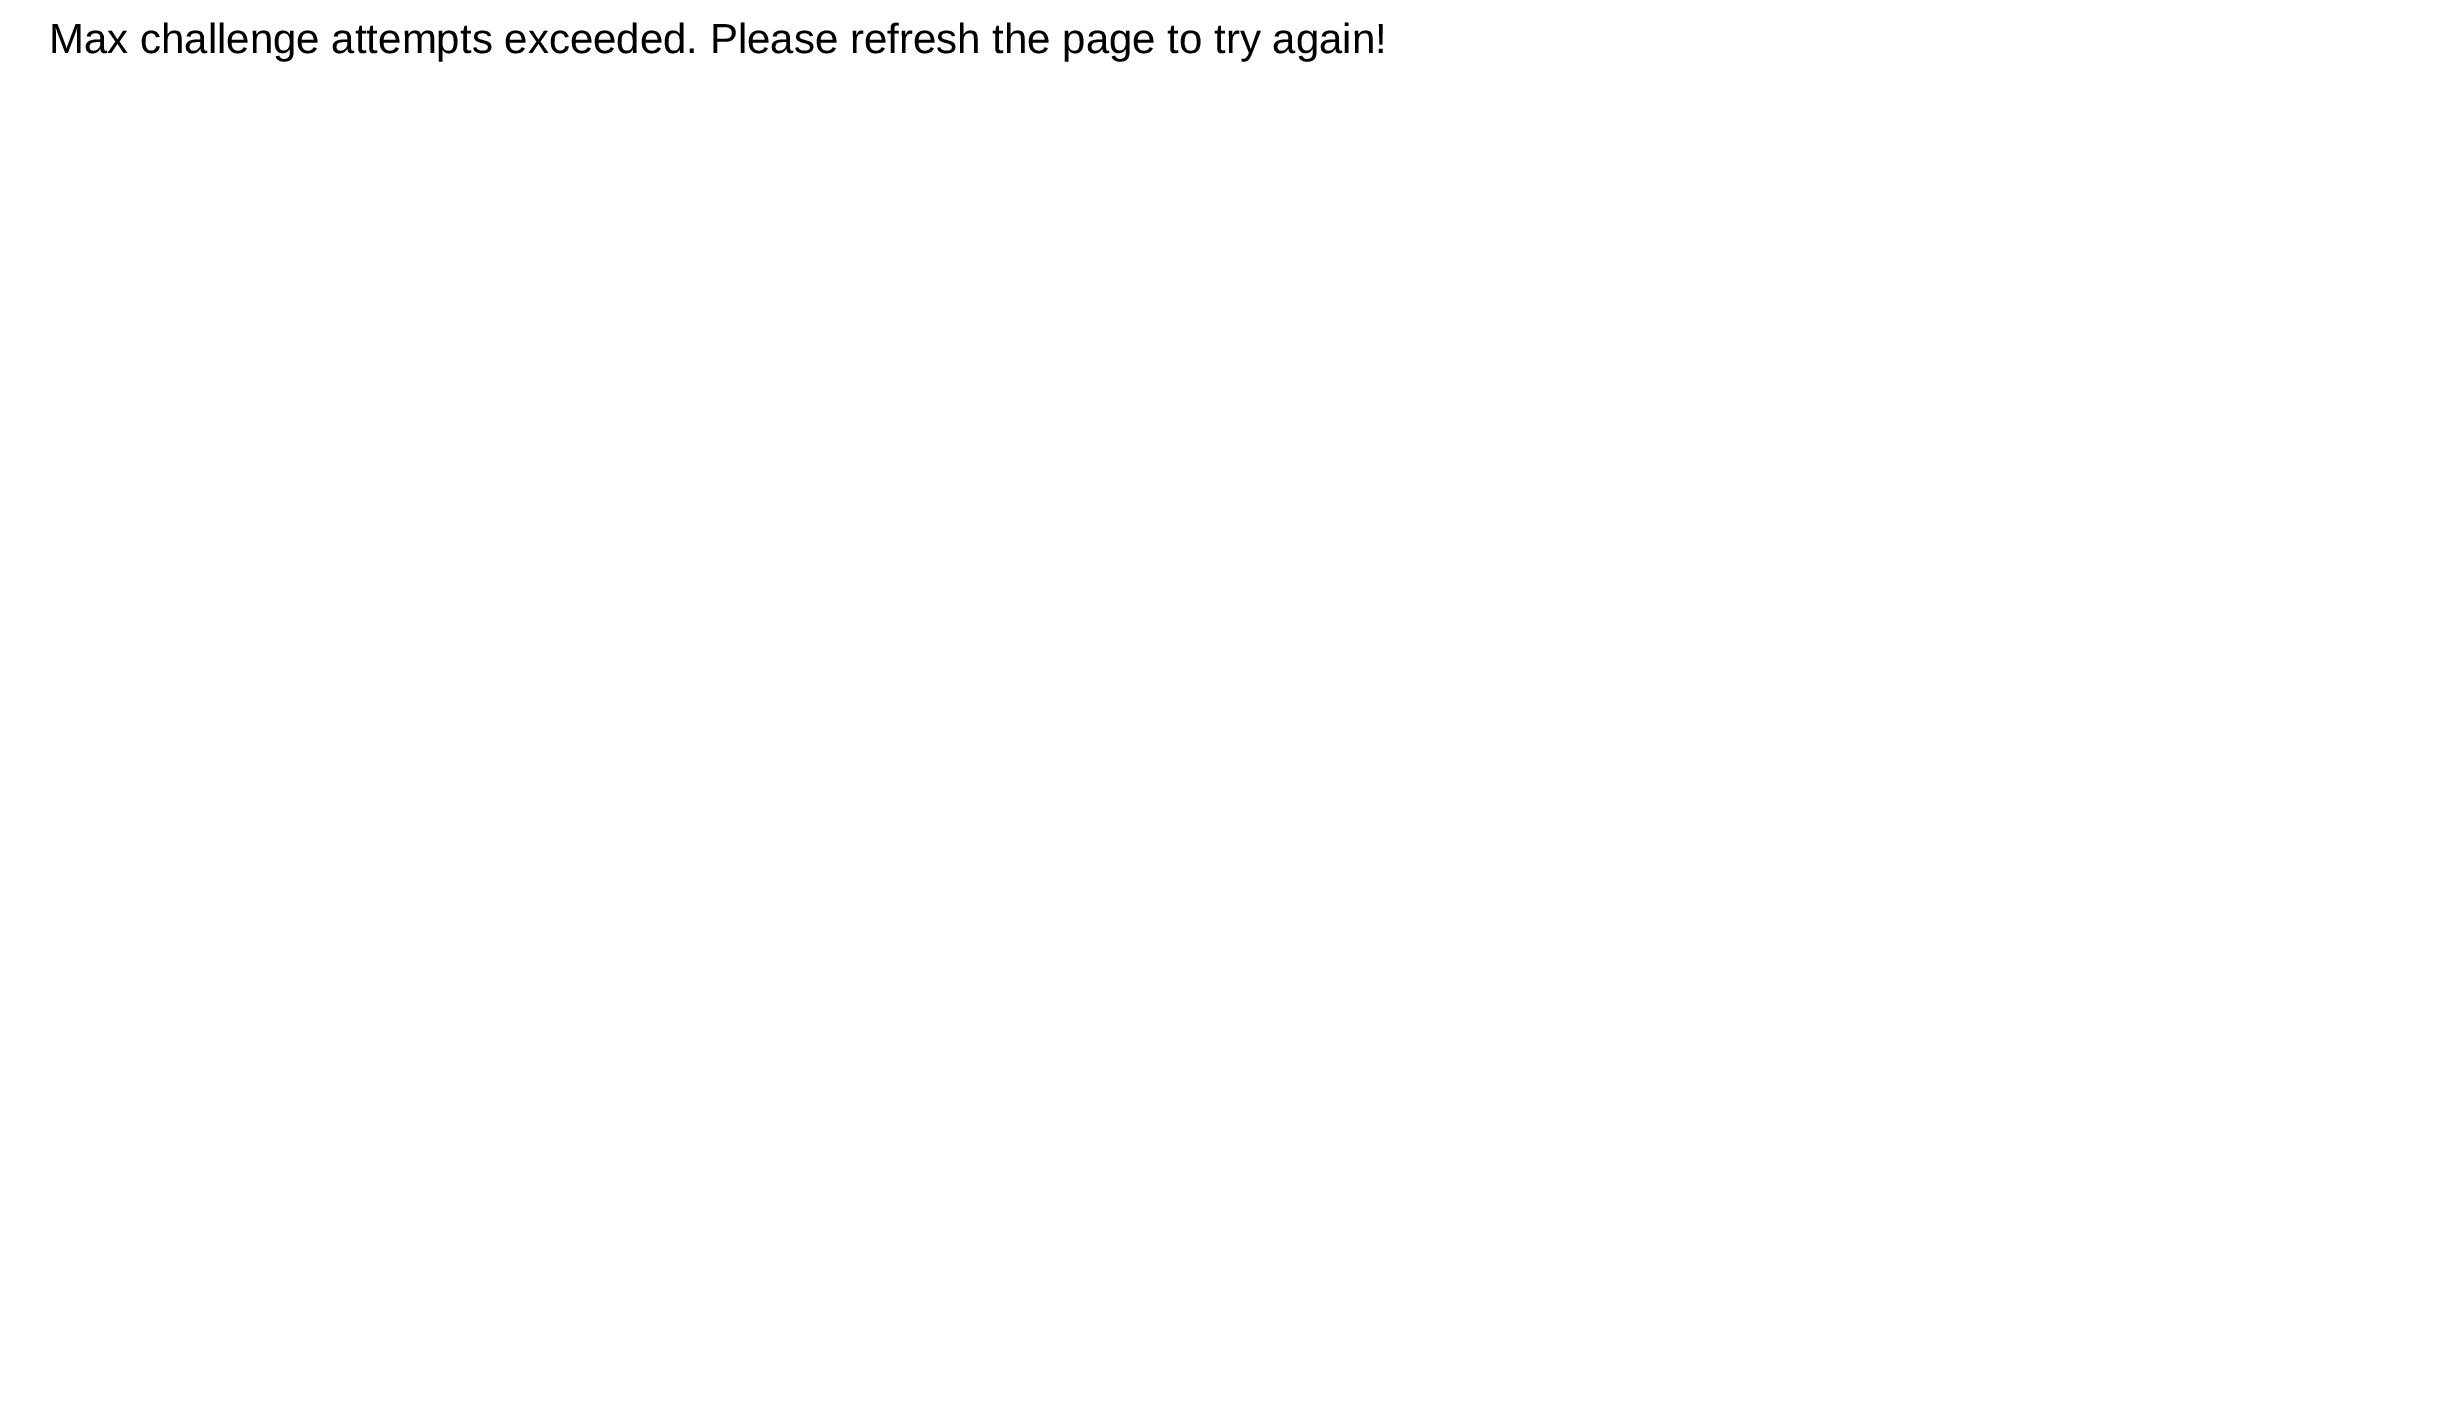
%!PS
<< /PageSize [2440 1415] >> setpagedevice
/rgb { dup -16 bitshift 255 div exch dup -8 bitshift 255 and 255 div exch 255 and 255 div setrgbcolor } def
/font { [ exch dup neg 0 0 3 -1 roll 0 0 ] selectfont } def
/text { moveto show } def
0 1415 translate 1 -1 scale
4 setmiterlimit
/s1 { /LiberationSans-Regular 42 font 16#000000 rgb } def
16#FFFFFF rgb
0 0 2440 1415 rectfill
s1
(Max challenge attempts exceeded. Please refresh the page to try again!) 49 53 text
showpage
